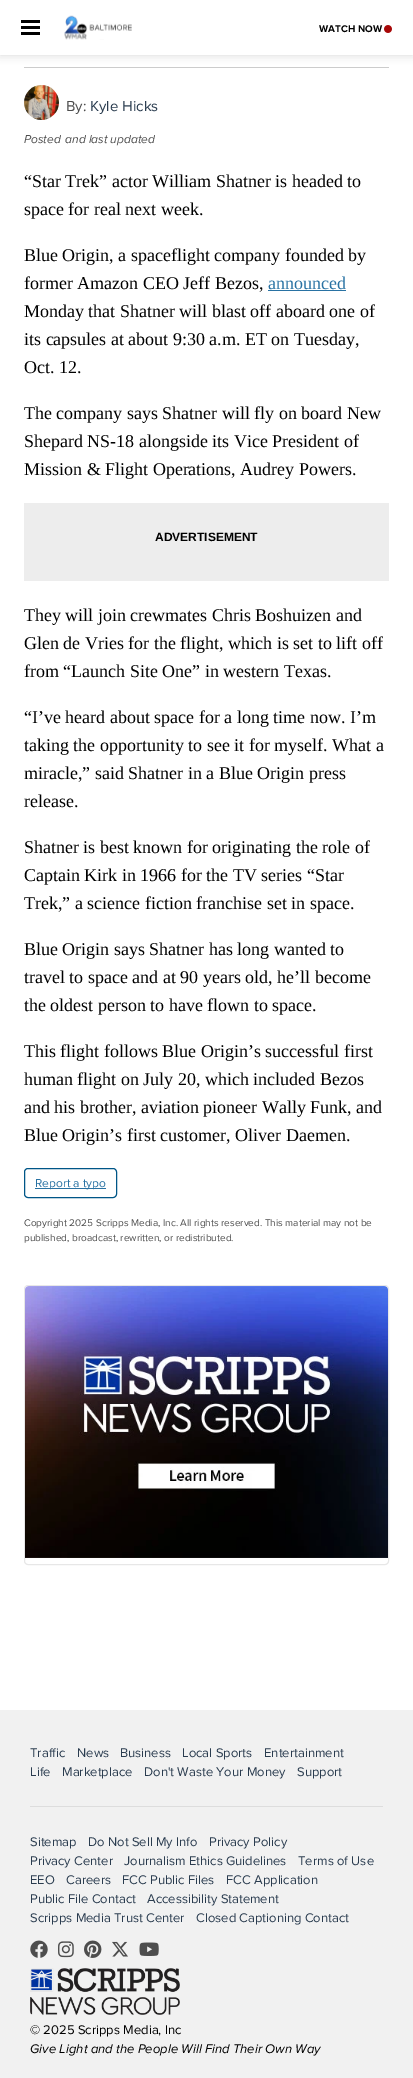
%!PS
<< /PageSize [413 2078] /PageUsesTransparency true >> setpagedevice
/rgb { dup -16 bitshift 255 div exch dup -8 bitshift 255 and 255 div exch 255 and 255 div setrgbcolor } def
/font { [ exch dup neg 0 0 3 -1 roll 0 0 ] selectfont } def
/text { moveto show } def
/alpha { dup .setfillconstantalpha .setstrokeconstantalpha } def
/roundrect { 5 dict begin { /r /h /w /y /x } { exch def } forall
  x r add y moveto x w add y 2 copy h add r arct x w add y h add x 1 index r arct
  x y h add x y r arct x y 2 copy exch w add exch r arct closepath end } def
/shadow { 12 dict begin { /a /b /q /h /w /y /x } { exch def } forall gsave /was 0 def
  9 -2 -9 { dup b mul 4 div /e exch def 1 sub .425 mul 2.718 exch exp 1 add a .99 .min exch div /now exch def
    1 1 now sub 1 was sub div sub alpha /was now def
    w h .min e 2 mul add 0 gt { x e sub y e sub w e 2 mul add h e 2 mul add
      q e add b .6 mul add w h .min 2 div e add .min 0 .max roundrect fill } if } for grestore end } def
/picture { 5 dict begin { /h /w /y /x /name } { exch def } forall
  gsave x y translate w h scale
  w h 8 [w 0 0 h 0 0] name (r) file false 3 colorimage grestore end } def
0 .pushpdf14devicefilter
0 2078 translate 1 -1 scale
4 setmiterlimit
/s1 { /ProximaNova-Bold 10 font 16#000000 rgb } def
/s2 { /ProximaNova-Regular 15 font 16#4D4D4D rgb } def
/s3 { /ProximaNova-Regular 15 font 16#2A3C4F rgb } def
/s4 { /ProximaNova-Italic 12 font 16#4D4D4D rgb } def
/s5 { /LiberationSerif-Regular 18 font 16#000000 rgb } def
/s6 { /LiberationSerif-Regular 18 font 16#2972A3 rgb } def
/s7 { /LiberationSans-Bold 12 font 16#000000 rgb } def
/s8 { /ProximaNova-Regular 12 font 16#2972A3 rgb } def
/s9 { /ProximaNova-Regular 10 font 16#4D4D4D rgb } def
/s10 { /ProximaNova-Regular 13 font 16#2A3C4F rgb } def
/s11 { /ProximaNova-Regular 13 font 16#000000 rgb } def
/s12 { /ProximaNova-Italic 13 font 16#000000 rgb } def
16#FFFFFF rgb
0 0 413 2078 rectfill
16#CCCCCC rgb
24 67 365 1 rectfill
gsave
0 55 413 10 rectclip
0 0 413 55 0 5 0.8 shadow
grestore
16#000000 rgb
21 20 19 3 rectfill
21 26 19 3 rectfill
21 32 19 3 rectfill
(pic1.raw) 64 15 68 25 picture
s1
(WATCH NOW) 319 32 text
(pic2.raw) 384 25 8 8 picture
(pic3.raw) 24 85 35 35 picture
s2
(By:) 66 111 text
s3
(Kyle Hicks) 90 111 text
s4
(Posted) 24 143 text
(and last updated) 65 143 text
s5
(“Star Trek” actor William Shatner is headed to) 24 187 text
(space for real next week.) 24 215 text
(Blue Origin, a spaceflight company founded by) 24 261 text
(former Amazon CEO Jeff Bezos,) 24 289 text
s6
(announced) 268 289 text
268 290 78 1 rectfill
s5
(Monday that Shatner will blast off aboard one of) 24 317 text
(its capsules at about 9:30 a.m. ET on Tuesday,) 24 345 text
(Oct. 12.) 24 373 text
(The company says Shatner will fly on board New) 24 419 text
(Shepard NS-18 alongside its Vice President of) 24 447 text
(Mission & Flight Operations, Audrey Powers.) 24 475 text
16#EDEDED rgb
24 503 365 78 rectfill
s7
(ADVERTISEMENT) 155 541 text
s5
(They will join crewmates Chris Boshuizen and) 24 621 text
(Glen de Vries for the flight, which is set to lift off) 24 649 text
(from “Launch Site One” in western Texas.) 24 677 text
(“I’ve heard about space for a long time now. I’m) 24 723 text
(taking the opportunity to see it for myself. What a) 24 751 text
(miracle,” said Shatner in a Blue Origin press) 24 779 text
(release.) 24 807 text
(Shatner is best known for originating the role of) 24 853 text
(Captain Kirk in 1966 for the TV series “Star) 24 881 text
(Trek,” a science fiction franchise set in space.) 24 909 text
(Blue Origin says Shatner has long wanted to) 24 955 text
(travel to space and at 90 years old, he’ll become) 24 983 text
(the oldest person to have flown to space.) 24 1011 text
(This flight follows Blue Origin’s successful first) 24 1057 text
(human flight on July 20, which included Bezos) 24 1085 text
(and his brother, aviation pioneer Wally Funk, and) 24 1113 text
(Blue Origin’s first customer, Oliver Daemen.) 24 1141 text
16#005687 rgb
24.5 1168.5 92 29 3.5 roundrect stroke
16#2972A3 rgb
35 1188 71 1 rectfill
s8
(Report a typo) 35 1187 text
s9
(Copyright 2025 Scripps Media, Inc. All rights reserved. This material may not be) 24 1226 text
(published, broadcast, rewritten, or redistributed.) 24 1241 text
16#E7E7E7 rgb
24.5 1285.5 364 279 3.5 roundrect stroke
(pic4.raw) 25 1286 363 272 picture
16#F1F1F1 rgb
0 1710 413 368 rectfill
s10
(Traffic) 30 1757 text
(News) 77 1757 text
(Business) 120 1757 text
(Local Sports) 182 1757 text
(Entertainment) 264 1757 text
(Life) 30 1776 text
(Marketplace) 62 1776 text
(Don't Waste Your Money) 144 1776 text
(Support) 297 1776 text
16#DDDDDD rgb
30 1806 353 1 rectfill
s10
(Sitemap) 30 1846 text
(Do Not Sell My Info) 88 1846 text
(Privacy Policy) 209 1846 text
(Privacy Center) 30 1865 text
(Journalism Ethics Guidelines) 124 1865 text
(Terms of Use) 298 1865 text
(EEO) 30 1884 text
(Careers) 66 1884 text
(FCC Public Files) 122 1884 text
(FCC Application) 226 1884 text
(Public File Contact) 30 1903 text
(Accessibility Statement) 147 1903 text
(Scripps Media Trust Center) 30 1922 text
(Closed Captioning Contact) 196 1922 text
(pic5.raw) 30 1940 18 18 picture
(pic6.raw) 58 1941 16 17 picture
(pic7.raw) 84 1940 18 18 picture
(pic8.raw) 112 1941 16 16 picture
(pic9.raw) 139 1942 20 14 picture
(pic10.raw) 30 1968 150 47 picture
s11
(© 2025 Scripps Media, Inc) 30 2034 text
s12
(Give Light and the People Will Find Their Own Way) 30 2053 text
.poppdf14devicefilter showpage
